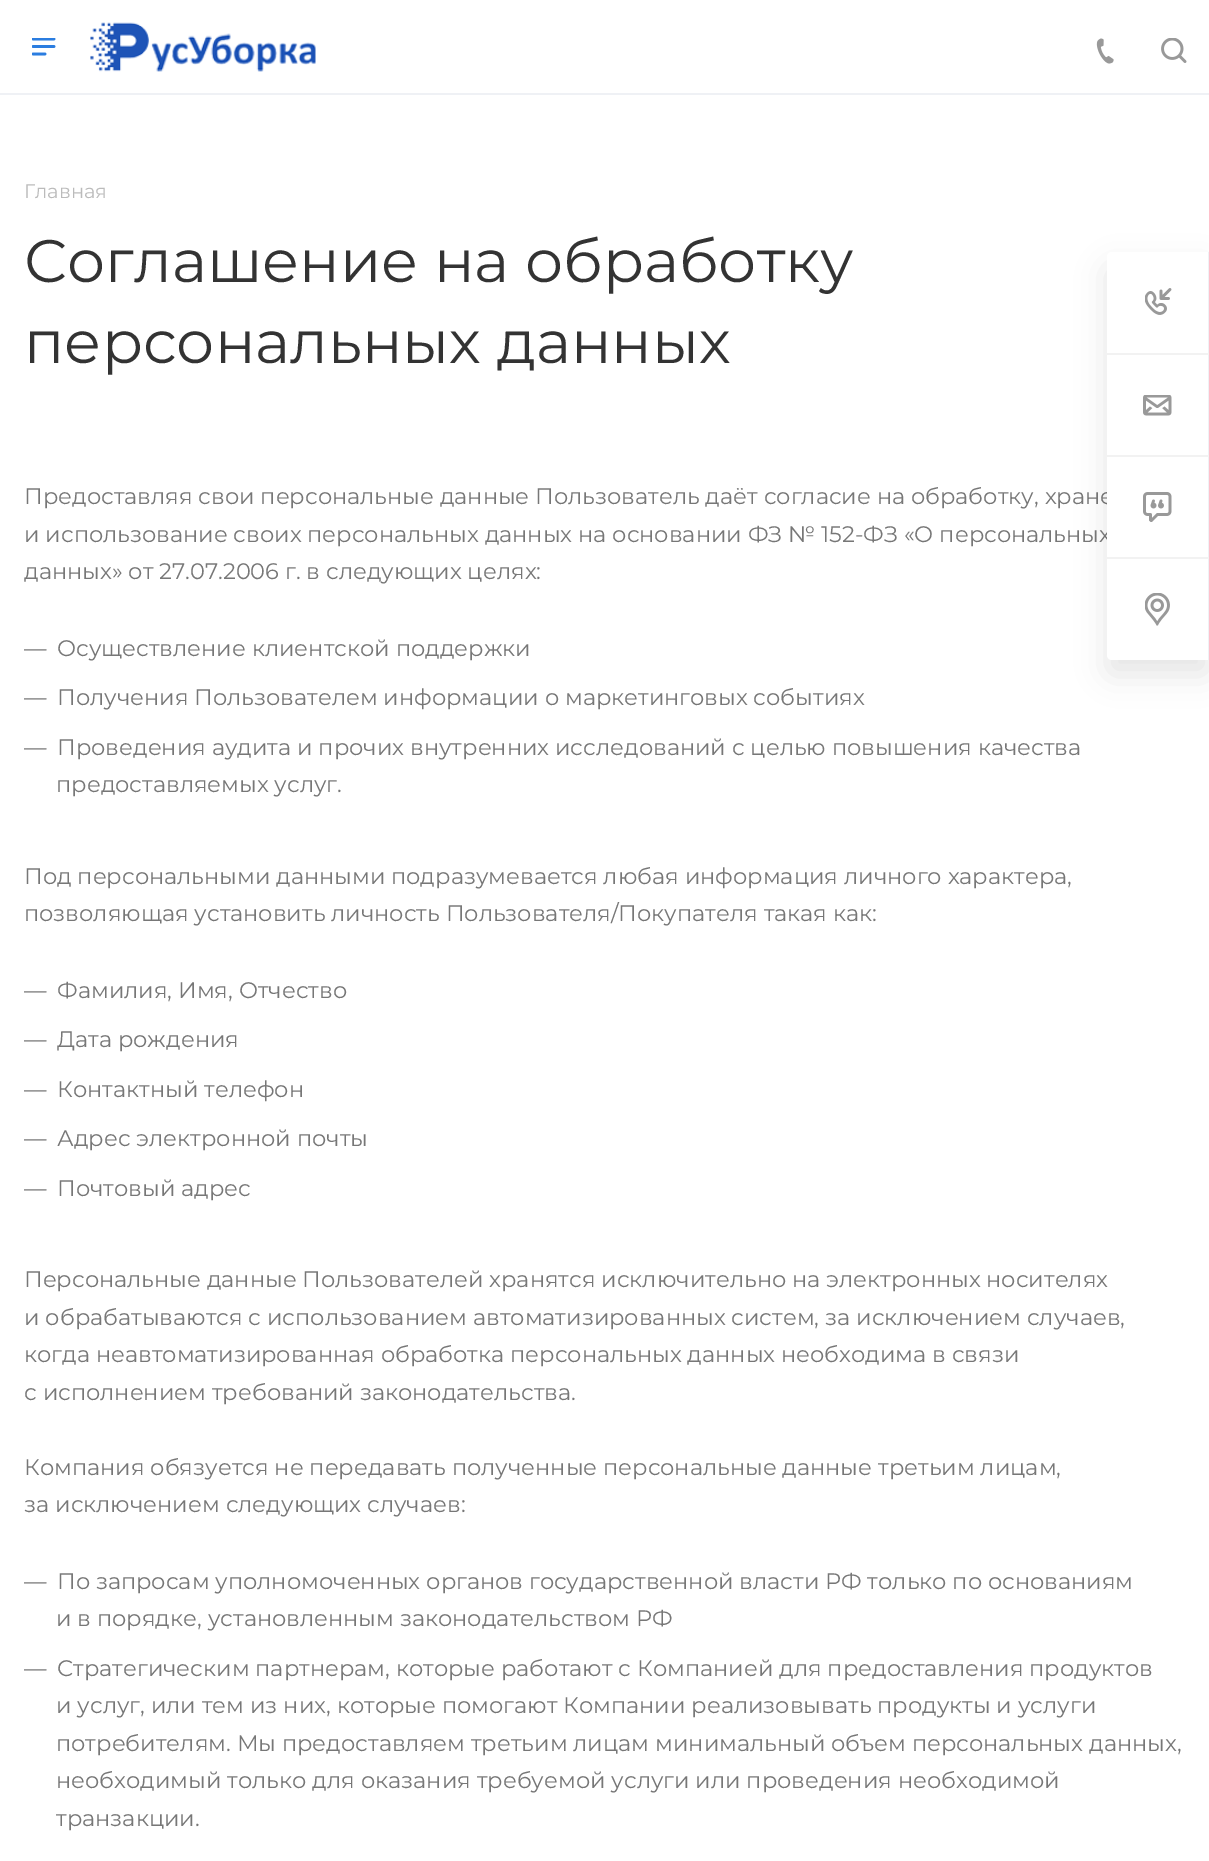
%!PS
<< /PageSize [1209 1861] /PageUsesTransparency true >> setpagedevice
/rgb { dup -16 bitshift 255 div exch dup -8 bitshift 255 and 255 div exch 255 and 255 div setrgbcolor } def
/font { [ exch dup neg 0 0 3 -1 roll 0 0 ] selectfont } def
/text { moveto show } def
/alpha { dup .setfillconstantalpha .setstrokeconstantalpha } def
/roundrect { 5 dict begin { /r /h /w /y /x } { exch def } forall
  x r add y moveto x w add y 2 copy h add r arct x w add y h add x 1 index r arct
  x y h add x y r arct x y 2 copy exch w add exch r arct closepath end } def
/shadow { 12 dict begin { /a /b /q /h /w /y /x } { exch def } forall gsave /was 0 def
  9 -2 -9 { dup b mul 4 div /e exch def 1 sub .425 mul 2.718 exch exp 1 add a .99 .min exch div /now exch def
    1 1 now sub 1 was sub div sub alpha /was now def
    w h .min e 2 mul add 0 gt { x e sub y e sub w e 2 mul add h e 2 mul add
      q e add b .6 mul add w h .min 2 div e add .min 0 .max roundrect fill } if } for grestore end } def
/picture { 5 dict begin { /h /w /y /x /name } { exch def } forall
  gsave x y translate w h scale
  w h 8 [w 0 0 h 0 0] name (r) file false 3 colorimage grestore end } def
0 .pushpdf14devicefilter
0 1861 translate 1 -1 scale
4 setmiterlimit
/s1 { /Montserrat-Regular 19.5 font 16#BBBBBB rgb } def
/s2 { /Montserrat-Regular 60 font 16#333333 rgb } def
/s3 { /Montserrat-Regular 22.5 font 16#777777 rgb } def
16#FFFFFF rgb
0 0 1209 1861 rectfill
16#EFF1F5 rgb
0 93 1209 2 rectfill
(pic1.raw) 32 38 24 18 picture
(pic2.raw) 90 22 226 50 picture
(pic3.raw) 1096 38 18 26 picture
(pic4.raw) 1161 38 26 25 picture
s1
(Главная) 24 198 text
s2
(Соглашение на обработку) 24 282 text
(персональных данных) 24 363 text
s3
(Предоставляя свои персональные данные Пользователь даёт согласие на обработку, хране) 24 504 text
(и использование своих персональных данных на основании ФЗ № 152-ФЗ «О персональных) 24 542 text
(данных» от 27.07.2006 г. в следующих целях:) 24 579 text
(—) 24 656 text
(Осуществление клиентской поддержки) 57 656 text
(—) 24 705 text
(Получения Пользователем информации о маркетинговых событиях) 57 705 text
(—) 24 755 text
(Проведения аудита и прочих внутренних исследований с целью повышения качества) 57 755 text
(предоставляемых услуг.) 56 792 text
(Под персональными данными подразумевается любая информация личного характера,) 24 884 text
(позволяющая установить личность Пользователя/Покупателя такая как:) 24 921 text
(—) 24 998 text
(Фамилия, Имя, Отчество) 57 998 text
(—) 24 1047 text
(Дата рождения) 57 1047 text
(—) 24 1097 text
(Контактный телефон) 57 1097 text
(—) 24 1146 text
(Адрес электронной почты) 57 1146 text
(—) 24 1196 text
(Почтовый адрес) 57 1196 text
(Персональные данные Пользователей хранятся исключительно на электронных носителях) 24 1287 text
(и обрабатываются с использованием автоматизированных систем, за исключением случаев,) 24 1325 text
(когда неавтоматизированная обработка персональных данных необходима в связи) 24 1362 text
(с исполнением требований законодательства.) 24 1400 text
(Компания обязуется не передавать полученные персональные данные третьим лицам,) 24 1475 text
(за исключением следующих случаев:) 24 1512 text
(—) 24 1589 text
(По запросам уполномоченных органов государственной власти РФ только по основаниям) 57 1589 text
(и в порядке, установленным законодательством РФ) 56 1626 text
(—) 24 1676 text
(Стратегическим партнерам, которые работают с Компанией для предоставления продуктов) 57 1676 text
(и услуг, или тем из них, которые помогают Компании реализовывать продукты и услуги) 56 1713 text
(потребителям. Мы предоставляем третьим лицам минимальный объем персональных данных,) 56 1751 text
(необходимый только для оказания требуемой услуги или проведения необходимой) 56 1788 text
(транзакции.) 56 1826 text
16#000000 rgb
1107 267 102 408 5 15 0.1 shadow
16#FFFFFF rgb
1112 252 moveto 1209 252 lineto 1209 660 lineto 1112 660 lineto 1109 660 1107 658 1107 655 curveto 1107 257 lineto 1107 254 1109 252 1112 252 curveto closepath fill
16#EFF1F5 rgb
1208 252 1 408 rectfill
16#F2F2F2 rgb
1107 353 102 2 rectfill
(pic5.raw) 1145 288 27 27 picture
1107 455 102 2 rectfill
(pic6.raw) 1143 395 29 21 picture
1107 557 102 2 rectfill
(pic7.raw) 1143 492 29 30 picture
(pic8.raw) 1145 593 25 33 picture
.poppdf14devicefilter showpage
